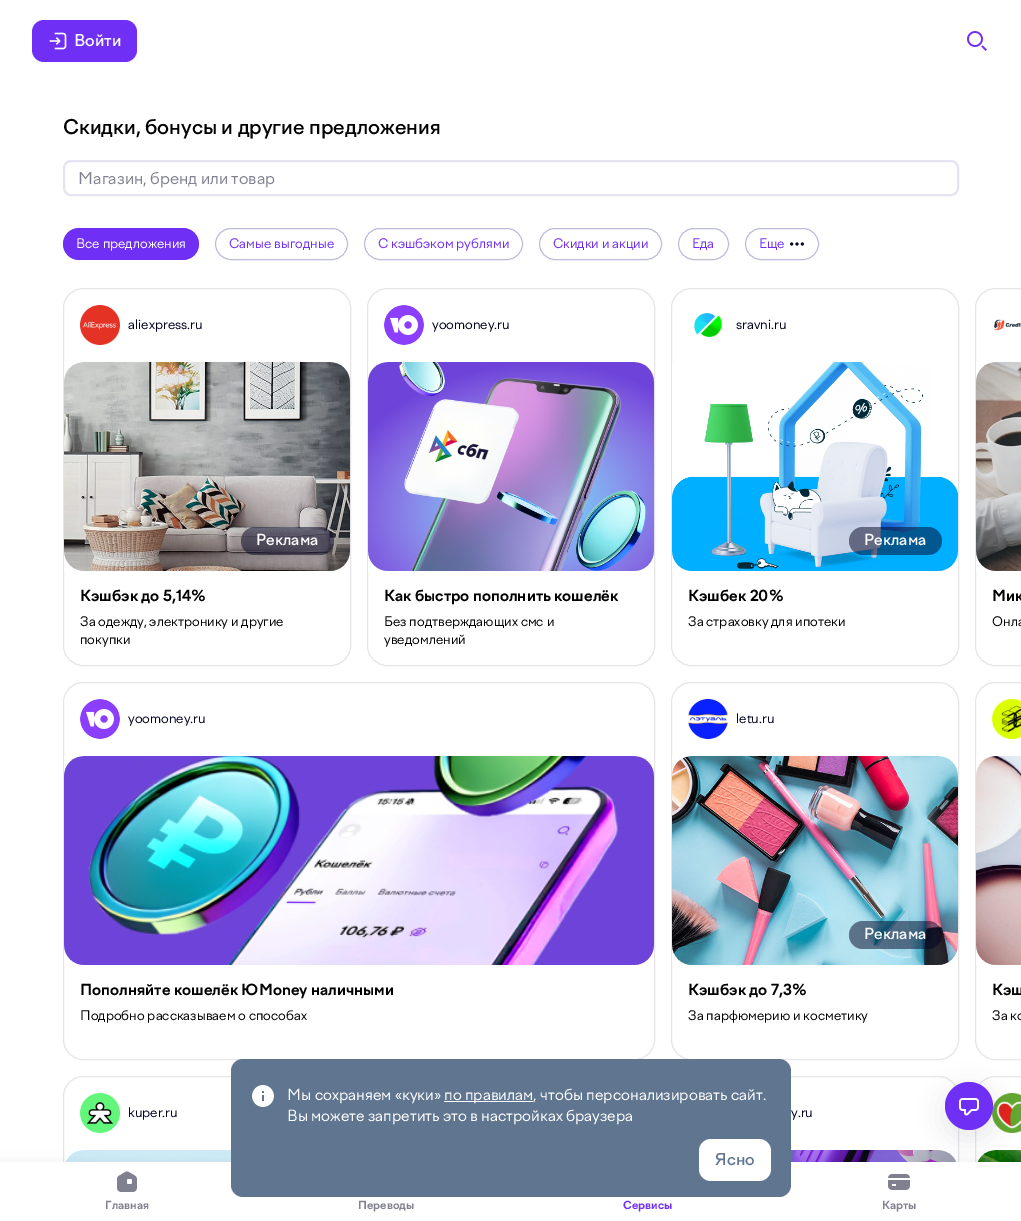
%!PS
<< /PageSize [1021 1221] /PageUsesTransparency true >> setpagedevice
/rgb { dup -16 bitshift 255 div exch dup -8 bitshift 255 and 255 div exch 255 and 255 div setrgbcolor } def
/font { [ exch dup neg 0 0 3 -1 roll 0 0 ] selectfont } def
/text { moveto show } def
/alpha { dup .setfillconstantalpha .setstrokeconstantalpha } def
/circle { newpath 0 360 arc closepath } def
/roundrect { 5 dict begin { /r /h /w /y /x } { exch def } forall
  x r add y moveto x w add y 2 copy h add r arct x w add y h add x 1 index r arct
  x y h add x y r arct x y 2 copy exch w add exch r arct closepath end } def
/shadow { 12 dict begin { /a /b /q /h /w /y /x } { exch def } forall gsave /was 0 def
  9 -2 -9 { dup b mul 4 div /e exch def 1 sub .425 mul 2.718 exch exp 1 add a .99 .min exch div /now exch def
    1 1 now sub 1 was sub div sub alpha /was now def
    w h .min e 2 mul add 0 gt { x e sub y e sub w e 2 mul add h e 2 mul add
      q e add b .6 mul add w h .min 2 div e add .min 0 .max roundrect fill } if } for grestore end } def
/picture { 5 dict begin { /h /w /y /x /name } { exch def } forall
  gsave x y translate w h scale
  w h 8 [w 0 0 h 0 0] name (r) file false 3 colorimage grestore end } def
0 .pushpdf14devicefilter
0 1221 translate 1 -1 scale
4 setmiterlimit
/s1 { /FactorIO-Medium 16 font 16#FFFFFF rgb } def
/s2 { /FactorIO-Bold 11 font 16#818191 rgb } def
/s3 { /FactorIO-Bold 11 font 16#702FF4 rgb } def
/s4 { /FactorIO-Medium 20 font 16#000000 rgb } def
/s5 { /FactorIO-Regular 16 font 16#818191 rgb } def
/s6 { /FactorIO-Regular 13 font 16#FFFFFF rgb } def
/s7 { /FactorIO-Regular 13 font 16#702FF4 rgb } def
/s8 { /FactorIO-Regular 13 font 16#020222 rgb } def
/s9 { /FactorIO-Medium 15 font 16#FFFFFF rgb } def
/s10 { /FactorIO-Bold 15 font 16#000000 rgb } def
/s11 { /FactorIO-Regular 13 font 16#000000 rgb } def
/s12 { /FactorIO-Regular 15 font 16#FFFFFF rgb } def
/s13 { /FactorIO-Medium 16 font 16#607590 rgb } def
16#FFFFFF rgb
0 0 1021 1221 rectfill
16#702FF4 rgb
32 20 105 42 12 roundrect fill
(pic1.raw) 49 32 18 18 picture
s1
(Войти) 74 46 text
(pic2.raw) 967 31 20 20 picture
16#E6E6E9 rgb
63.5 1076.5 287 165 19.5 roundrect stroke
(pic20.raw) 65 1150 166 12 picture
671.5 1076.5 287 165 19.5 roundrect stroke
(pic21.raw) 791 1150 166 12 picture
975.5 1076.5 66 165 19.5 roundrect stroke
(pic23.raw) 977 1150 44 12 picture
16#000832 rgb
-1 1164 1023 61 0 6 0.08 shadow
16#FFFFFF rgb
0 1162 1021 59 rectfill
(pic3.raw) 117 1171 20 21 picture
s2
(Главная) 105 1209 text
(Переводы) 358 1209 text
s3
(Сервисы) 623 1209 text
(pic4.raw) 888 1174 22 16 picture
s2
(Карты) 882 1209 text
s4
(Скидки, бонусы и другие предложения) 63 134 text
16#E4E4F1 rgb
2 setlinewidth
64 161 894 34 7 roundrect stroke
s5
(Магазин, бренд или товар) 78 184 text
16#702FF4 rgb
63 228 136 32 16 roundrect fill
s6
(Все предложения) 76 248 text
16#BDBDDB rgb
1 setlinewidth
215.5 228.5 132 31 15.5 roundrect stroke
s7
(Самые выгодные) 229 248 text
16#BDBDDB rgb
364.5 228.5 158 31 15.5 roundrect stroke
s7
(С кэшбэком рублями) 378 248 text
16#BDBDDB rgb
539.5 228.5 122 31 15.5 roundrect stroke
s7
(Скидки и акции) 553 248 text
16#BDBDDB rgb
678.5 228.5 50 31 15.5 roundrect stroke
s7
(Еда) 692 248 text
16#BDBDDB rgb
745.5 228.5 73 31 15.5 roundrect stroke
s7
(Еще) 759 248 text
(pic5.raw) 790 242 14 4 picture
16#E6E6E9 rgb
63.5 288.5 287 377 19.5 roundrect stroke
(pic6.raw) 80 305 40 40 picture
s8
(aliexpress.ru) 128 329 text
(pic7.raw) 64 362 286 209 picture
0.5 alpha
241 527 93 28 14 roundrect fill
1 alpha
s9
(Реклама) 256 545 text
s10
(Кэшбэк до 5,14%) 80 601 text
s11
(За одежду, электронику и другие) 80 626 text
(покупки) 80 644 text
16#E6E6E9 rgb
367.5 288.5 287 377 19.5 roundrect stroke
(pic8.raw) 384 305 40 40 picture
s8
(yoomoney.ru) 432 329 text
(pic9.raw) 368 362 286 209 picture
s10
(Как быстро пополнить кошелёк) 384 601 text
s11
(Без подтверждающих смс и) 384 626 text
(уведомлений) 384 644 text
16#E6E6E9 rgb
671.5 288.5 287 377 19.5 roundrect stroke
(pic10.raw) 694 313 28 24 picture
s8
(sravni.ru) 736 329 text
(pic11.raw) 672 362 286 209 picture
0.5 alpha
849 527 93 28 14 roundrect fill
1 alpha
s9
(Реклама) 864 545 text
s10
(Кэшбек 20%) 688 601 text
s11
(За страховку для ипотеки) 688 626 text
16#E6E6E9 rgb
975.5 288.5 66 377 19.5 roundrect stroke
(pic12.raw) 993 319 28 12 picture
(pic13.raw) 976 362 45 209 picture
s10
(Мик) 992 601 text
s11
(Онла) 992 626 text
16#E6E6E9 rgb
63.5 682.5 591 377 19.5 roundrect stroke
(pic8.raw) 80 699 40 40 picture
s8
(yoomoney.ru) 128 723 text
(pic14.raw) 64 756 590 209 picture
s10
(Пополняйте кошелёк ЮMoney наличными) 80 995 text
s11
(Подробно рассказываем о способах) 80 1020 text
16#E6E6E9 rgb
671.5 682.5 287 377 19.5 roundrect stroke
(pic15.raw) 688 699 40 40 picture
s8
(letu.ru) 736 723 text
(pic16.raw) 672 756 286 209 picture
0.5 alpha
849 921 93 28 14 roundrect fill
1 alpha
s9
(Реклама) 864 939 text
s10
(Кэшбэк до 7,3%) 688 995 text
s11
(За парфюмерию и косметику) 688 1020 text
16#E6E6E9 rgb
975.5 682.5 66 377 19.5 roundrect stroke
(pic17.raw) 992 699 29 40 picture
(pic18.raw) 976 756 45 209 picture
s10
(Кэш) 992 995 text
s11
(За ко) 992 1020 text
(pic19.raw) 80 1093 40 40 picture
s8
(kuper.ru) 128 1117 text
(y.ru) 791 1117 text
(pic22.raw) 992 1093 29 40 picture
16#607590 rgb
231 1059 560 138 12 roundrect fill
(pic24.raw) 252 1085 22 22 picture
s12
(Мы сохраняем «куки») 287 1100 text
444 1101 89 1 rectfill
(по правилам, чтобы персонализировать сайт.) 444 1100 text
(Вы можете запретить это в настройках браузера) 287 1121 text
699 1139 72 42 12 roundrect fill
s13
(Ясно) 715 1165 text
16#000832 rgb
943 1088 52 52 26 12 0.08 shadow
16#702FF4 rgb
969 1106 24 circle fill
(pic25.raw) 959 1098 20 18 picture
.poppdf14devicefilter showpage
